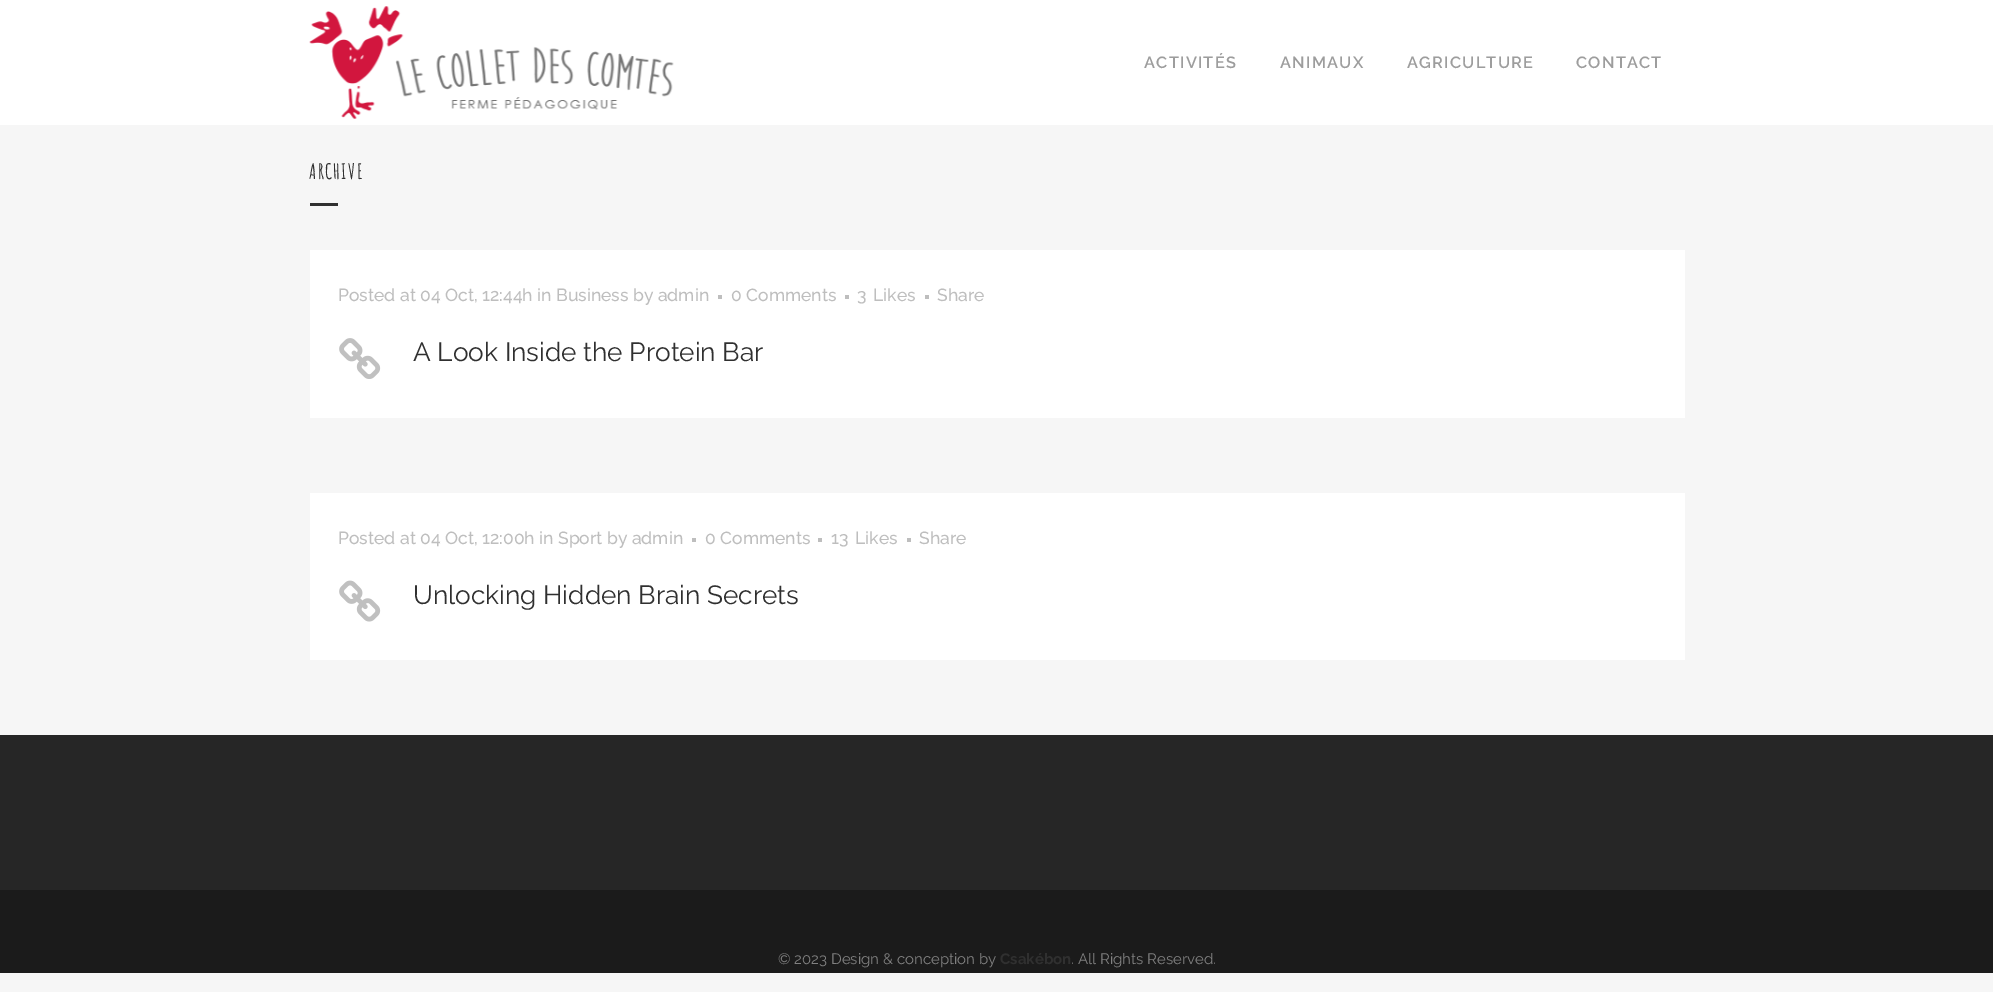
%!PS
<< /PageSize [1993 992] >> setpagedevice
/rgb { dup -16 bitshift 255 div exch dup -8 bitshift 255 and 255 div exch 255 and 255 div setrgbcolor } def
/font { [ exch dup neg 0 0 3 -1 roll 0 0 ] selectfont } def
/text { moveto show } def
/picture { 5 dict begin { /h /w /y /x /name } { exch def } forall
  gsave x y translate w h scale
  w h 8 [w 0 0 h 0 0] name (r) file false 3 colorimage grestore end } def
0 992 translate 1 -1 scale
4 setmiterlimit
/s1 { /Raleway-Medium 17.5 font 16#BEBEBE rgb } def
/s2 { /Raleway-Regular 26.25 font 16#303030 rgb } def
/s3 { /Raleway-Regular 15 font 16#818181 rgb } def
/s4 { /Raleway-Bold 15 font 16#303030 rgb } def
16#F6F6F6 rgb
0 0 1993 992 rectfill
16#FFFFFF rgb
0 0 1993 125 rectfill
(pic1.raw) 309 6 365 113 picture
/Raleway-SemiBold 16.25 font
16#9D9D9D rgb
1144 68 moveto 1.25 0 (ACTIVITÉS) ashow
1280 68 moveto 1.25 0 (ANIMAUX) ashow
1407 68 moveto 1.25 0 (AGRICULTURE) ashow
1576 68 moveto 1.25 0 (CONTACT) ashow
/AmaticSC-Bold 21 font
16#303030 rgb
309 179 moveto 1.25 0 (ARCHIVE) ashow
310 203 28 3 rectfill
16#FFFFFF rgb
310 250 1375 168 rectfill
s1
(Posted at 04 Oct, 12:44h in Business by admin) 338 301 text
718 295 4 4 rectfill
(0 Comments) 731 301 text
845 295 4 4 rectfill
(3) 857 301 text
(Likes) 873 301 text
925 295 4 4 rectfill
(Share) 937 301 text
(pic2.raw) 339 338 42 41 picture
s2
(A Look Inside the Protein Bar) 413 361 text
16#FFFFFF rgb
310 493 1375 167 rectfill
s1
(Posted at 04 Oct, 12:00h in Sport by admin) 338 544 text
692 538 4 4 rectfill
(0 Comments) 705 544 text
818 538 4 4 rectfill
(13) 831 544 text
(Likes) 855 544 text
907 538 4 4 rectfill
(Share) 919 544 text
(pic3.raw) 339 580 42 42 picture
s2
(Unlocking Hidden Brain Secrets) 413 604 text
16#262626 rgb
0 735 1993 155 rectfill
16#1B1B1B rgb
0 890 1993 83 rectfill
s3
(© 2023 Design & conception by) 778 964 text
s4
(Csakébon) 1000 964 text
s3
(. All Rights Reserved.) 1071 964 text
showpage
